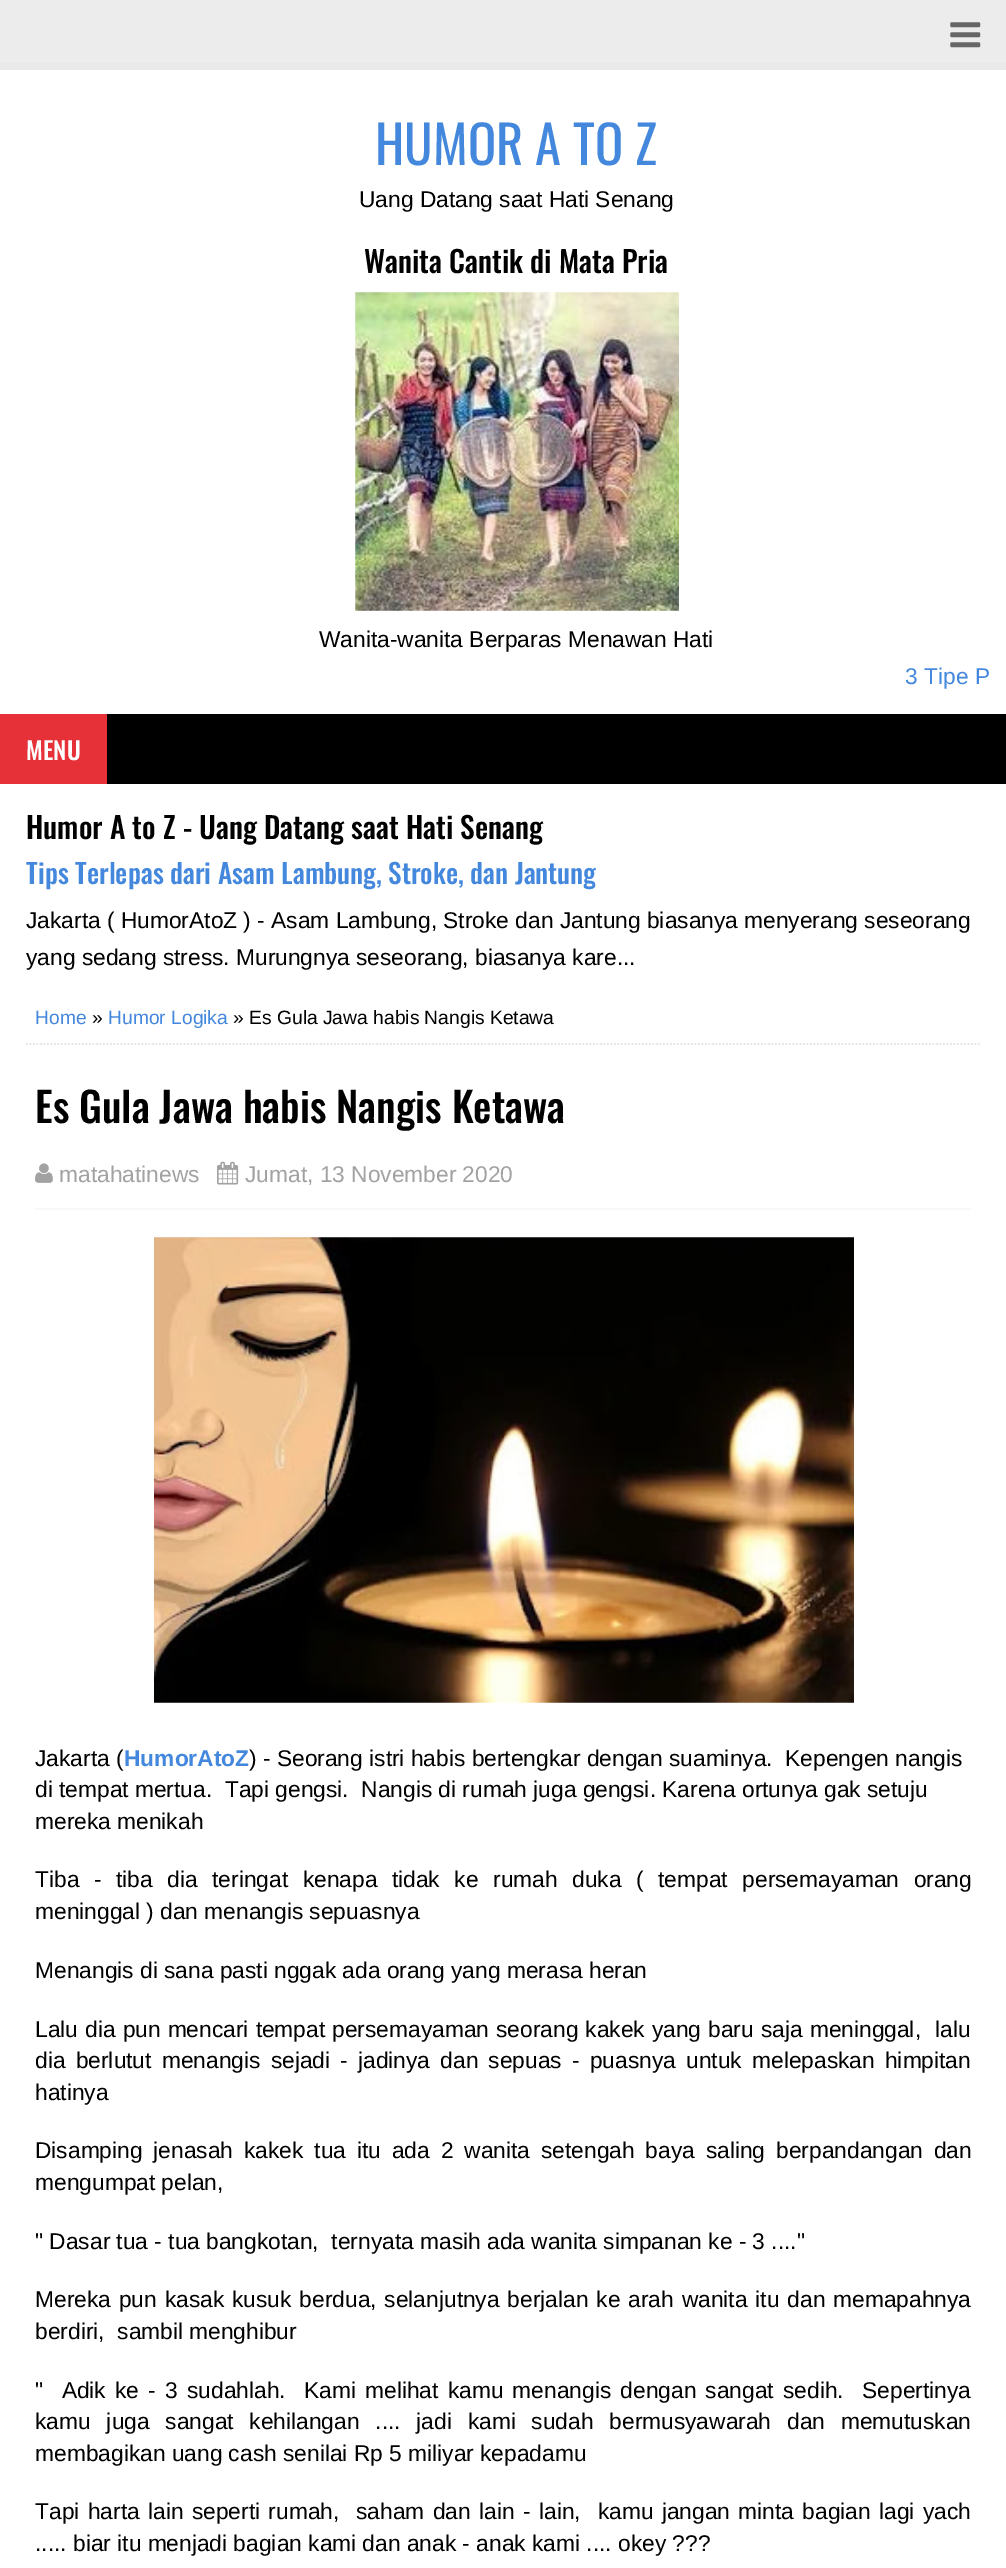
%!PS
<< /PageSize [1006 2568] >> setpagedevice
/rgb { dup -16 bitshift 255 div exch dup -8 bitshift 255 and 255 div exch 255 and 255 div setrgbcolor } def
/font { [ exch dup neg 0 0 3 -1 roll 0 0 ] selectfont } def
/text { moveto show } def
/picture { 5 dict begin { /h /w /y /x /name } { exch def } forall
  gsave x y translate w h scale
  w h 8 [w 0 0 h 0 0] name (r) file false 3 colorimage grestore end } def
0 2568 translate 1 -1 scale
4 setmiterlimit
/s1 { /Oswald-Regular 52.5 font 16#4488DD rgb } def
/s2 { /LiberationSans-Regular 22.75 font 16#000000 rgb } def
/s3 { /Oswald-Medium 29.6 font 16#000000 rgb } def
/s4 { /LiberationSans-Regular 22.75 font 16#4488DD rgb } def
/s5 { /Oswald-Medium 24.5 font 16#FFFFFF rgb } def
/s6 { /Oswald-Medium 27.3 font 16#4488DD rgb } def
/s7 { /LiberationSans-Regular 19.25 font 16#4488DD rgb } def
/s8 { /LiberationSans-Regular 19.25 font 16#000000 rgb } def
/s9 { /Oswald-Medium 41 font 16#000000 rgb } def
/s10 { /LiberationSans-Regular 22.75 font 16#A2A2A2 rgb } def
/s11 { /LiberationSans-Bold 22.75 font 16#4488DD rgb } def
16#FFFFFF rgb
0 0 1006 2568 rectfill
16#ECECEC rgb
0 0 1006 63 rectfill
16#E9E9E9 rgb
0 63 1006 7 rectfill
(pic1.raw) 950 22 31 26 picture
s1
(HUMOR A TO Z) 375 165 text
s2
(Uang Datang saat Hati Senang) 359 207 text
s3
(Wanita Cantik di Mata Pria) 364 273 text
(pic2.raw) 355 292 324 319 picture
s2
(Wanita-wanita Berparas Menawan Hati) 319 647 text
s4
(3 Tipe P) 905 684 text
16#000000 rgb
107 714 899 70 rectfill
16#E73138 rgb
0 714 107 70 rectfill
s5
(MENU) 26 760 text
s3
(Humor A to Z - Uang Datang saat Hati Senang) 26 839 text
s6
(Tips Terlepas dari Asam Lambung, Stroke, dan Jantung) 26 884 text
s2
(Jakarta \( HumorAtoZ \) - Asam Lambung, Stroke dan Jantung biasanya menyerang seseorang) 26 928 text
(yang sedang stress. Murungnya seseorang, biasanya kare...) 26 965 text
16#E5E5E5 rgb
1.8 setlinewidth
[1.75 1.75] 0 setdash
26 1044 moveto 980 1044 lineto stroke
s7
(Home) 35 1024 text
s8
(») 92 1024 text
s7
(Humor Logika) 108 1024 text
s8
(» Es Gula Jawa habis Nangis Ketawa) 233 1024 text
s9
(Es Gula Jawa habis Nangis Ketawa) 35 1123 text
16#F7F7F7 rgb
35 1208 936 2 rectfill
(pic3.raw) 35 1163 18 20 picture
s10
(matahatinews) 59 1182 text
(pic4.raw) 217 1161 22 24 picture
(Jumat, 13 November 2020) 245 1182 text
(pic5.raw) 154 1237 700 466 picture
s2
(Jakarta \() 35 1766 text
s11
(HumorAtoZ) 124 1766 text
s2
(\) - Seorang istri habis bertengkar dengan suaminya.  Kepengen nangis) 249 1766 text
(di tempat mertua.  Tapi gengsi.  Nangis di rumah juga gengsi. Karena ortunya gak setuju) 35 1797 text
(mereka menikah) 35 1829 text
35 1887 moveto 8.25 0 32 (Tiba - tiba dia teringat kenapa tidak ke rumah duka \( tempat persemayaman orang) widthshow
(meninggal \) dan menangis sepuasnya) 35 1919 text
(Menangis di sana pasti nggak ada orang yang merasa heran) 35 1978 text
35 2037 moveto 0.75 0 32 (Lalu dia pun mencari tempat persemayaman seorang kakek yang baru saja meninggal,  lalu) widthshow
35 2068 moveto 3.9 0 32 (dia berlutut menangis sejadi - jadinya dan sepuas - puasnya untuk melepaskan himpitan) widthshow
(hatinya) 35 2100 text
35 2158 moveto 4.6 0 32 (Disamping jenasah kakek tua itu ada 2 wanita setengah baya saling berpandangan dan) widthshow
(mengumpat pelan,) 35 2190 text
(" Dasar tua - tua bangkotan,  ternyata masih ada wanita simpanan ke - 3 ....") 35 2249 text
35 2307 moveto 1.6 0 32 (Mereka pun kasak kusuk berdua, selanjutnya berjalan ke arah wanita itu dan memapahnya) widthshow
(berdiri,  sambil menghibur) 35 2339 text
35 2398 moveto 2.9 0 32 ("  Adik ke - 3 sudahlah.  Kami melihat kamu menangis dengan sangat sedih.  Sepertinya) widthshow
35 2429 moveto 9.5 0 32 (kamu juga sangat kehilangan .... jadi kami sudah bermusyawarah dan memutuskan) widthshow
(membagikan uang cash senilai Rp 5 miliyar kepadamu) 35 2461 text
35 2519 moveto 2.1 0 32 (Tapi harta lain seperti rumah,  saham dan lain - lain,  kamu jangan minta bagian lagi yach) widthshow
(..... biar itu menjadi bagian kami dan anak - anak kami .... okey ???) 35 2551 text
showpage
